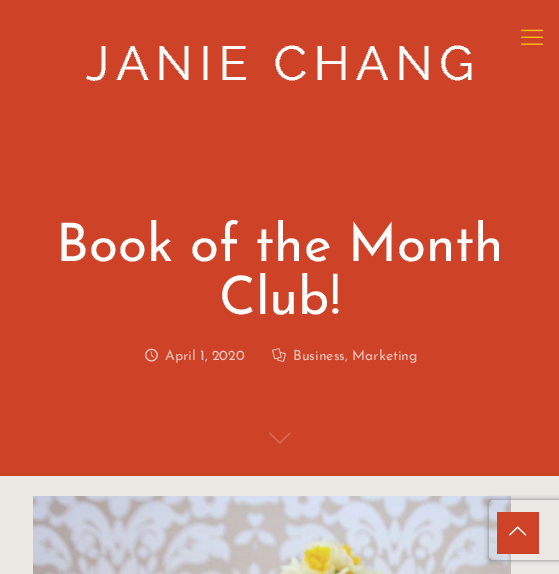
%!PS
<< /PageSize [559 574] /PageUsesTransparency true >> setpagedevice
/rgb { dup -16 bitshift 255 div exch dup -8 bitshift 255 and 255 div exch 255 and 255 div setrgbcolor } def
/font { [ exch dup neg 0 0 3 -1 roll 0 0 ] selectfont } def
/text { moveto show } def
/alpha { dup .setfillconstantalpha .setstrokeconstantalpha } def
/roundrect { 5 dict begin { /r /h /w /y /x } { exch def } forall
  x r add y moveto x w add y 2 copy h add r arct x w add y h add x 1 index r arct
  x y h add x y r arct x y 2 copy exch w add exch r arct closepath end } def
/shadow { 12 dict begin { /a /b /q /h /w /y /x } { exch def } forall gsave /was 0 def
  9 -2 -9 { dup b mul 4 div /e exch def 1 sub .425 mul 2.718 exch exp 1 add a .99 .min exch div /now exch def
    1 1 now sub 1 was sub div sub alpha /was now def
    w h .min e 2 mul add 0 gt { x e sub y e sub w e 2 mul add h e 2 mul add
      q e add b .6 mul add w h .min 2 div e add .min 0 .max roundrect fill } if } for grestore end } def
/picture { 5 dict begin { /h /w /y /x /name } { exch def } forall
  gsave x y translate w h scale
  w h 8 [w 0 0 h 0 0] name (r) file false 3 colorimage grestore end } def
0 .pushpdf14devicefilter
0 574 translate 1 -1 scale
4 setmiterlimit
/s1 { /JosefinSans-Regular 53 font 16#FFFFFF rgb } def
/s2 { /JosefinSans-Regular 14 font 16#F0C6BE rgb } def
16#ECE9E4 rgb
0 0 559 574 rectfill
16#CE4227 rgb
0 0 559 476 rectfill
(pic1.raw) 521 29 22 16 picture
(pic2.raw) 86 45 386 36 picture
s1
(Book of the Month) 56 261 text
(Club!) 219 314 text
(pic3.raw) 145 348 13 14 picture
s2
(April 1, 2020) 165 360 text
(pic4.raw) 272 348 14 15 picture
(Business, Marketing) 293 360 text
(pic5.raw) 269 432 22 12 picture
(pic6.raw) 33 496 478 78 picture
gsave
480 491 moveto 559 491 lineto 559 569 lineto 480 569 lineto closepath 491 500 moveto 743 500 lineto 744 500 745 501 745 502 curveto 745 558 lineto 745 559 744 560 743 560 curveto 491 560 lineto 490 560 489 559 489 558 curveto 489 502 lineto 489 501 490 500 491 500 curveto closepath eoclip newpath
16#808080 rgb
489 500 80 60 2 2.5 1 shadow
grestore
16#CE4227 rgb
497 512 42 42 rectfill
(pic7.raw) 509 526 18 10 picture
.poppdf14devicefilter showpage
